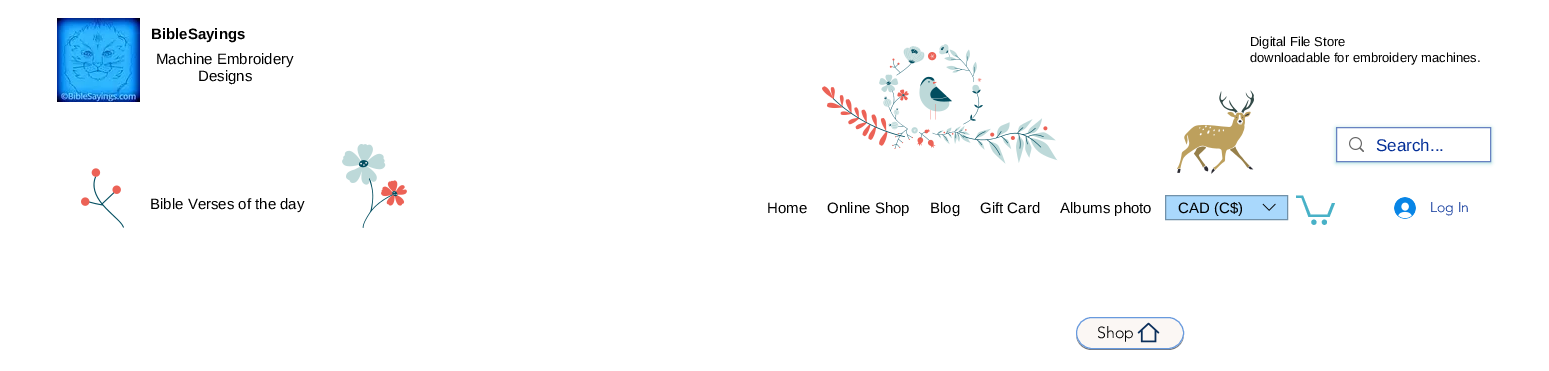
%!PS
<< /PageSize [1549 371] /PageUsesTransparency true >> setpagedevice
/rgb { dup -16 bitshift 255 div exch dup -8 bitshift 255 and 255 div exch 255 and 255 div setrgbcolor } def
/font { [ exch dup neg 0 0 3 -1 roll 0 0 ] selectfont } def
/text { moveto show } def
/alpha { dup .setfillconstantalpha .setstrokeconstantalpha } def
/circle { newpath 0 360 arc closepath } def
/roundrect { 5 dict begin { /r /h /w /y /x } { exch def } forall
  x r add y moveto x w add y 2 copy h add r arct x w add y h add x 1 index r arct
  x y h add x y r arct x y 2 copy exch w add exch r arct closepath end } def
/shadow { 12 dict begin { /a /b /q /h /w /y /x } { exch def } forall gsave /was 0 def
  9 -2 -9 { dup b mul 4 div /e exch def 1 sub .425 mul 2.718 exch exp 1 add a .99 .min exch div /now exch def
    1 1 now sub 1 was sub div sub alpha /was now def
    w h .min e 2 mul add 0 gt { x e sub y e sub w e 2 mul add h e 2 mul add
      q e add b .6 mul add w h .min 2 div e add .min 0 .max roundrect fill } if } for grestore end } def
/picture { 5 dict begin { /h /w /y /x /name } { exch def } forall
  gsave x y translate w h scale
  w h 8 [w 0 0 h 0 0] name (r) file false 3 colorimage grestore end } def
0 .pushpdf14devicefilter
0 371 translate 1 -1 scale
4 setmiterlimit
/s1 { /LiberationSans-Bold 15 font 16#000000 rgb } def
/s2 { /LiberationSans-Regular 15 font 16#000000 rgb } def
/s3 { /LiberationSans-Regular 13 font 16#000000 rgb } def
/s4 { /LiberationSans-Regular 17 font 16#042F97 rgb } def
/s5 { /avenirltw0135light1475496-Light 14 font 16#042F97 rgb } def
/s6 { /avenirltw0135light1475496-Light 16 font 16#000000 rgb } def
16#FFFFFF rgb
0 0 1549 371 rectfill
(pic1.raw) 57 18 83 84 picture
s1
(BibleSayings) 151 39 text
s2
(Machine Embroidery) 156 64 text
(Designs) 198 81 text
(pic2.raw) 81 168 43 60 picture
(Bible Verses of the day) 150 209 text
(pic3.raw) 342 144 65 84 picture
(pic5.raw) 879 44 104 105 picture
(pic4.raw) 822 86 83 60 picture
(pic6.raw) 963 118 95 46 picture
(pic7.raw) 1177 90 77 84 picture
s3
(Digital File Store) 1250 46 text
(downloadable for embroidery machines.) 1250 62 text
gsave
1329 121 moveto 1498 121 lineto 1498 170 lineto 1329 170 lineto closepath 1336 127 moveto 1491 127 lineto 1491 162 lineto 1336 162 lineto closepath eoclip newpath
16#59BABA rgb
1336 128 155 35 0 2 0.61 shadow
grestore
16#6882C1 rgb
1336.5 127.5 154 34 rectstroke
(pic8.raw) 1349 137 15 15 picture
s4
(Search...) 1376 151 text
s2
(Home) 767 213 text
(Online Shop) 827 213 text
(Blog) 930 213 text
(Gift Card) 980 213 text
(Albums photo) 1060 213 text
16#A9D8FC rgb
1165.5 195.5 moveto 1287.5 195.5 lineto 1287.5 219.5 lineto 1165.5 219.5 lineto closepath gsave fill grestore
16#7191A9 rgb
stroke
s2
(CAD \(C$\)) 1178 213 text
(pic9.raw) 1262 203 14 8 picture
16#48B1C7 rgb
1335 203 moveto 1329.5 217 lineto 1308.5 217 lineto 1301.5 198 lineto 1296 198 lineto 1296 195.5 lineto 1303 195.5 lineto 1310.5 214.5 lineto 1327.5 214.5 lineto 1332 203 lineto fill
1324.4 222.2 2.6 circle fill
1313.9 222.2 2.6 circle fill
(pic10.raw) 1394 197 22 22 picture
s5
(Log In) 1430 212 text
16#757575 rgb
1076 334 moveto 1076 343 1083 350 1092 350 curveto 1168 350 lineto 1177 350 1184 343 1184 334 curveto 1184 342 1177 349 1168 349 curveto 1092 349 lineto 1083 349 1076 342 1076 334 curveto closepath fill
0.4 alpha
16#F6EBE4 rgb
1076.5 317.5 107 31 15.5 roundrect fill
1 alpha
16#689ADE rgb
1076.5 317.5 107 31 15.5 roundrect stroke
s6
(Shop) 1097 338 text
(pic11.raw) 1137 322 23 21 picture
.poppdf14devicefilter showpage
